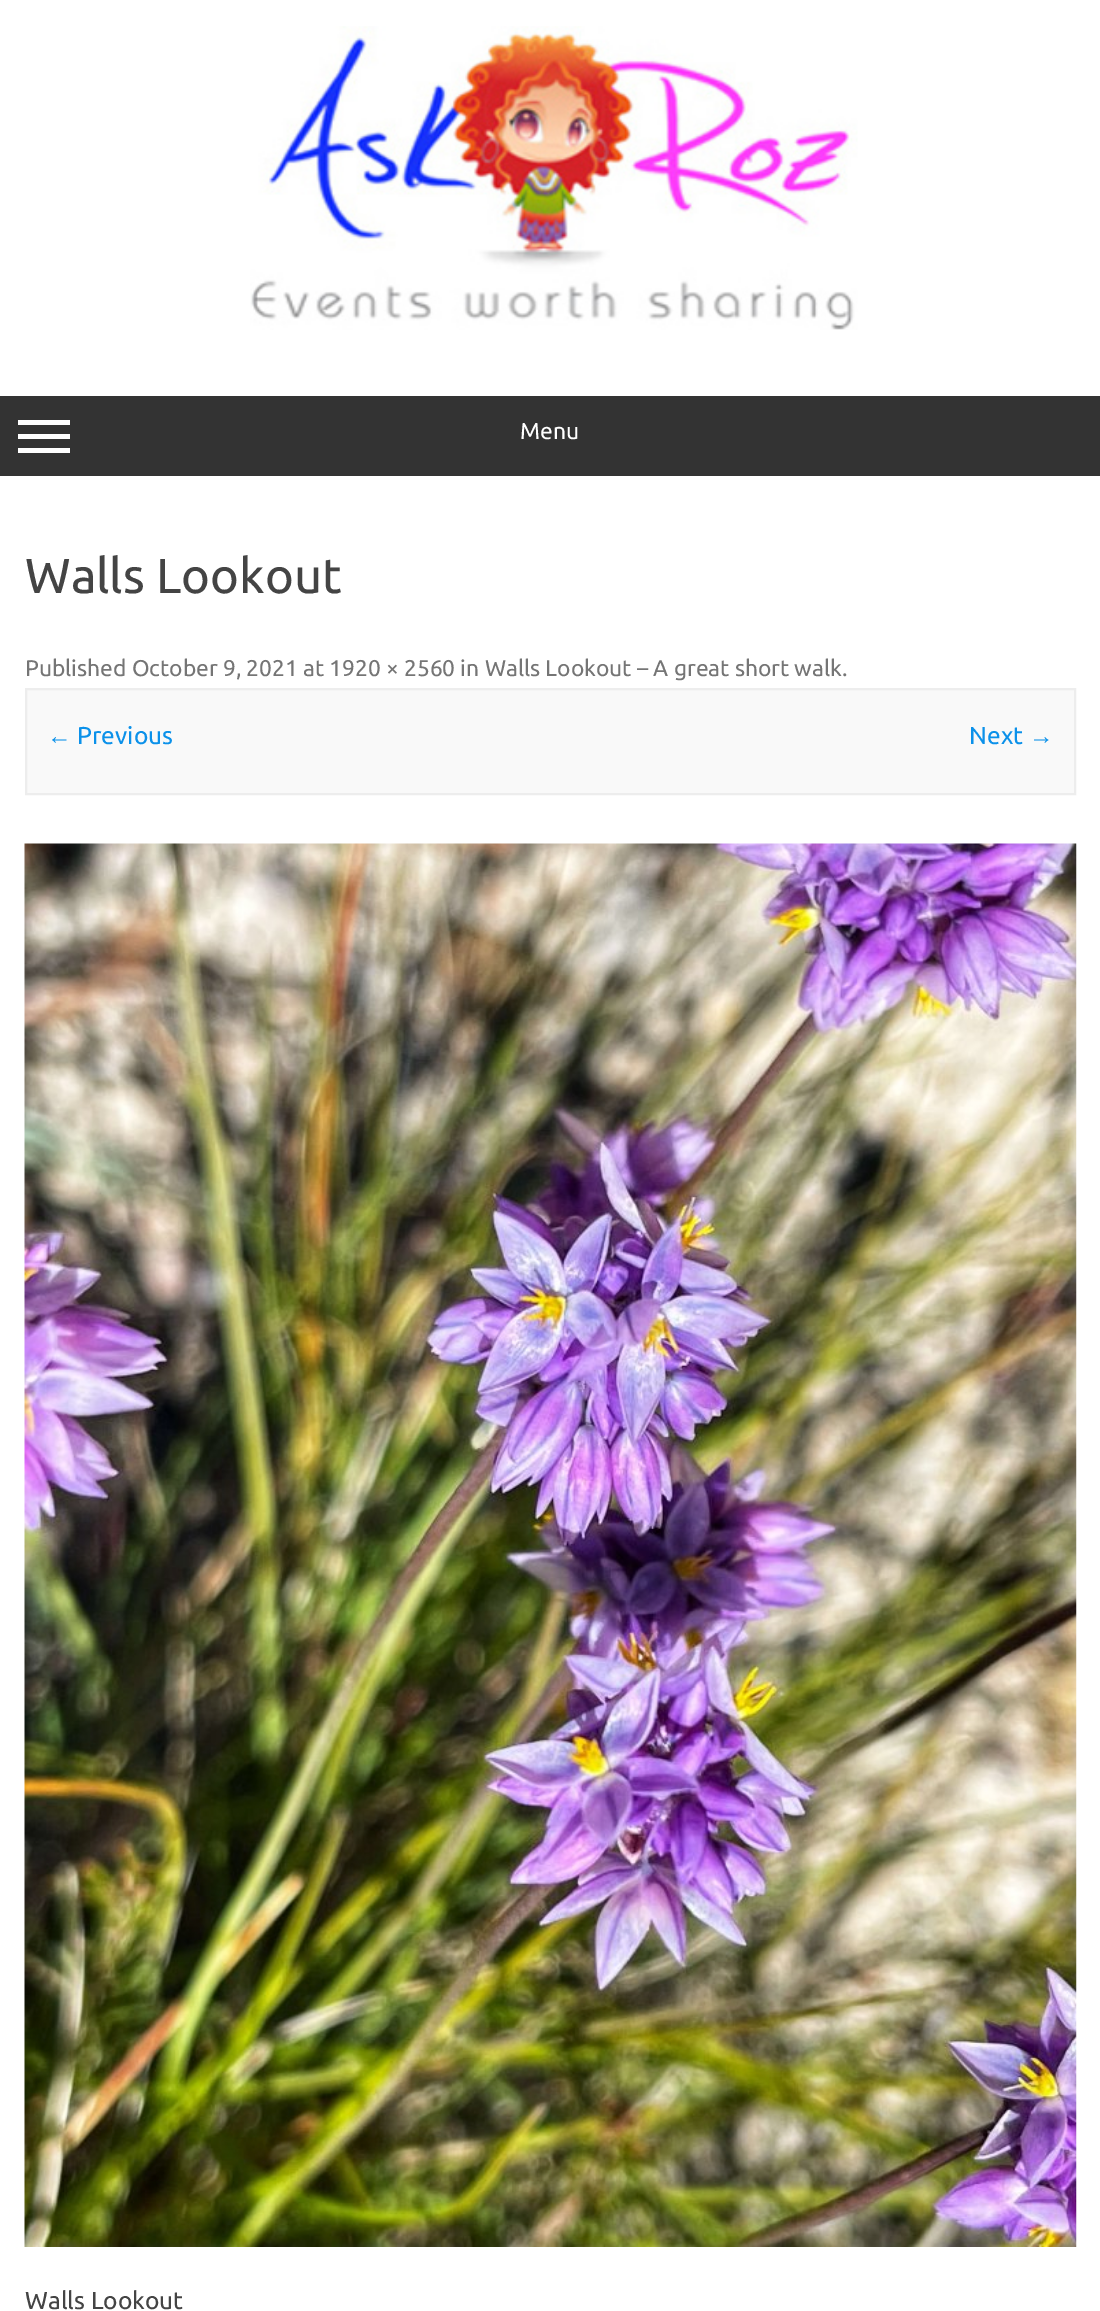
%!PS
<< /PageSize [1100 2311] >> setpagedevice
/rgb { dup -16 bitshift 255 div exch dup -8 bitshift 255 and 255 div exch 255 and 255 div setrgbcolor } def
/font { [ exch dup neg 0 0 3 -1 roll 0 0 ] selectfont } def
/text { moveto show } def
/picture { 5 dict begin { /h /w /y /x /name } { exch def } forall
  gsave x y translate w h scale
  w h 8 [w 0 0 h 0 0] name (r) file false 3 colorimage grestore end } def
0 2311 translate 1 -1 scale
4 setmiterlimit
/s1 { /Ubuntu-Regular 23 font 16#FFFFFF rgb } def
/s2 { /Ubuntu-Regular 49 font 16#444444 rgb } def
/s3 { /Ubuntu-Regular 22.75 font 16#757575 rgb } def
/s4 { /LiberationSans-Regular 24.5 font 16#0B91EA rgb } def
/s5 { /Ubuntu-Regular 24.5 font 16#0B91EA rgb } def
/s6 { /Ubuntu-Regular 24.5 font 16#444444 rgb } def
16#FFFFFF rgb
0 0 1100 2311 rectfill
(pic1.raw) 250 26 608 304 picture
16#333333 rgb
0 396 1100 80 rectfill
16#FFFFFF rgb
18 420 52 5 rectfill
18 434 52 5 rectfill
18 448 52 5 rectfill
s1
(Menu) 520 439 text
s2
(Walls Lookout) 25 593 text
s3
(Published October 9, 2021 at 1920 × 2560 in Walls Lookout – A great short walk.) 25 676 text
16#F9F9F9 rgb
26 689 moveto 1075 689 lineto 1075 794 lineto 26 794 lineto closepath gsave fill grestore
16#EDEDED rgb
2 setlinewidth
stroke
s4
(←) 47 744 text
s5
(Previous) 77 744 text
(Next) 969 744 text
s4
(→) 1029 744 text
(pic2.raw) 24 843 1053 1404 picture
s6
(Walls Lookout) 25 2309 text
showpage
